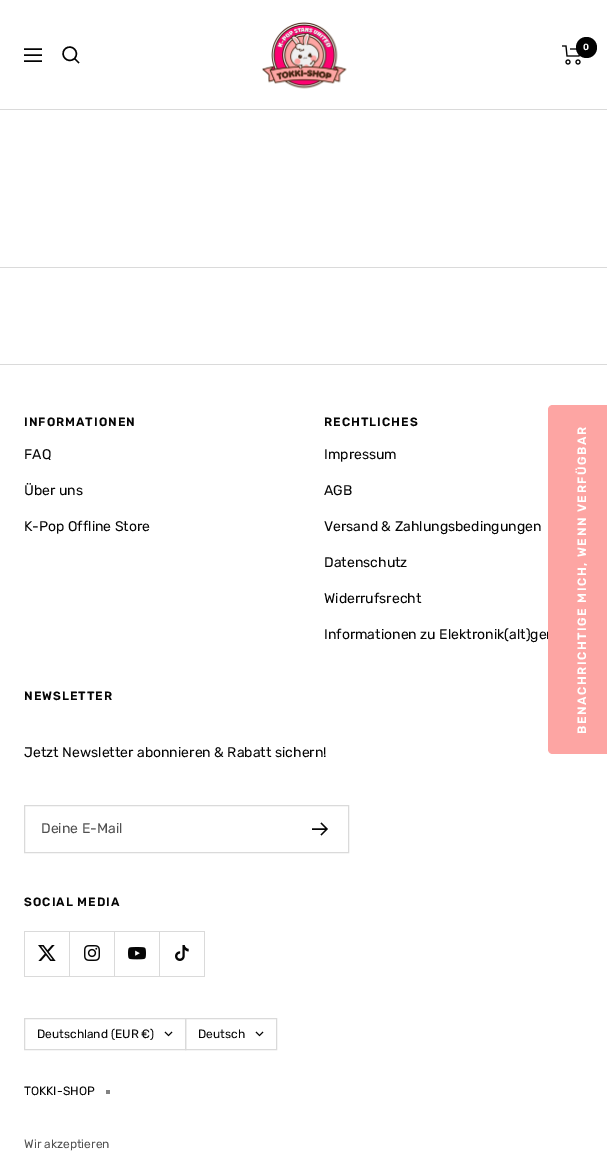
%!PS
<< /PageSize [607 1159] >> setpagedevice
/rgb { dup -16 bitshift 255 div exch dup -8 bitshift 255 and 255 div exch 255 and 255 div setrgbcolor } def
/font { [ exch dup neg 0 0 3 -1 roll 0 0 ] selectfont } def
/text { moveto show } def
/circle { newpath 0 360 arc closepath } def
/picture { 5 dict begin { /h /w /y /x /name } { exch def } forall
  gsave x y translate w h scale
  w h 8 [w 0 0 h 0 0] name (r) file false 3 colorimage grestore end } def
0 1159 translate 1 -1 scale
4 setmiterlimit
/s1 { /Rubik-SemiBold 9 font 16#FFFFFF rgb } def
/s2 { /Rubik-Regular 14 font 16#050505 rgb } def
/s3 { /Rubik-Regular 14 font 16#505050 rgb } def
/s4 { /Rubik-Regular 12 font 16#050505 rgb } def
/s5 { /Rubik-Regular 12 font 16#505050 rgb } def
16#FFFFFF rgb
0 0 607 1159 rectfill
16#DADADA rgb
0 109 607 1 rectfill
16#020202 rgb
1.4 setlinewidth
24 49 moveto 42 49 lineto 24 61 moveto 42 61 lineto closepath 24 55 moveto 42 55 lineto closepath 74.5 58.5 moveto 80.5 52 71.5 43 65 49 curveto 59 55.5 68 64.5 74.5 58.5 curveto closepath 74.5 58.5 moveto 79 63 lineto stroke
(pic1.raw) 262 22 85 67 picture
(pic2.raw) 562 45 19 20 picture
586.5 47.5 10.5 circle fill
s1
(0) 583 50 text
16#DADADA rgb
0 267 607 1 rectfill
0 364 607 1 rectfill
/Rubik-SemiBold 12 font
16#050505 rgb
24 426 moveto 1 0 (INFORMATIONEN) ashow
s2
(FAQ) 24 459 text
(Über uns) 24 495 text
(K-Pop Offline Store) 24 531 text
/Rubik-SemiBold 12 font
324 426 moveto 1 0 (RECHTLICHES) ashow
s2
(Impressum) 324 459 text
(AGB) 324 495 text
(Versand & Zahlungsbedingungen) 324 531 text
(Datenschutz) 324 567 text
(Widerrufsrecht) 324 603 text
(Informationen zu Elektronik\(alt\)ger) 324 639 text
/Rubik-SemiBold 12 font
24 700 moveto 1 0 (NEWSLETTER) ashow
s2
(Jetzt Newsletter abonnieren & Rabatt sichern!) 24 757 text
16#DADADA rgb
1 setlinewidth
24.5 805.5 324 47 rectstroke
s3
(Deine E-Mail) 41 833 text
16#050505 rgb
1.4 setlinewidth
312 829 moveto 327 829 lineto 321 823 moveto 327 829 lineto 321 835 lineto stroke
/Rubik-SemiBold 12 font
24 906 moveto 1 0 (SOCIAL MEDIA) ashow
16#DADADA rgb
25 976 moveto 25 977 lineto 70 977 lineto 70 932 lineto 69 932 lineto 69 976 lineto closepath fill
24 976 1 1 rectfill
24 931 46 1 rectfill
24 931 1 45 rectfill
(pic3.raw) 38 945 18 16 picture
70 976 moveto 70 977 lineto 115 977 lineto 115 932 lineto 114 932 lineto 114 976 lineto closepath fill
69 931 46 1 rectfill
(pic4.raw) 84 945 16 16 picture
115 976 moveto 115 977 lineto 160 977 lineto 160 932 lineto 159 932 lineto 159 976 lineto closepath fill
114 931 46 1 rectfill
(pic5.raw) 128 947 18 13 picture
160 976 moveto 160 977 lineto 205 977 lineto 205 932 lineto 204 932 lineto 204 976 lineto closepath fill
159 931 46 1 rectfill
(pic6.raw) 175 945 14 16 picture
1 setlinewidth
24.5 1018.5 161 31 rectstroke
s4
(Deutschland \(EUR €\)) 37 1038 text
165 1032 moveto 168.5 1035.5 lineto 172 1032 lineto stroke
16#DADADA rgb
185.5 1018.5 91 31 rectstroke
s4
(Deutsch) 198 1038 text
256 1032 moveto 259.5 1035.5 lineto 263 1032 lineto stroke
(TOKKI-SHOP) 24 1095 text
16#828282 rgb
106 1090 4 4 rectfill
s5
(Wir akzeptieren) 24 1148 text
16#FDA5A3 rgb
548 749 moveto 548 410 lineto 548 407 550 405 553 405 curveto 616 405 lineto 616 754 lineto 553 754 lineto 550 754 548 752 548 749 curveto closepath fill
/Rubik-SemiBold 12 font
16#FFFFFF rgb
gsave 586 734 translate -90 rotate 0 0 moveto 1.5 0 (BENACHRICHTIGE MICH, WENN VERFÜGBAR) ashow grestore
showpage
